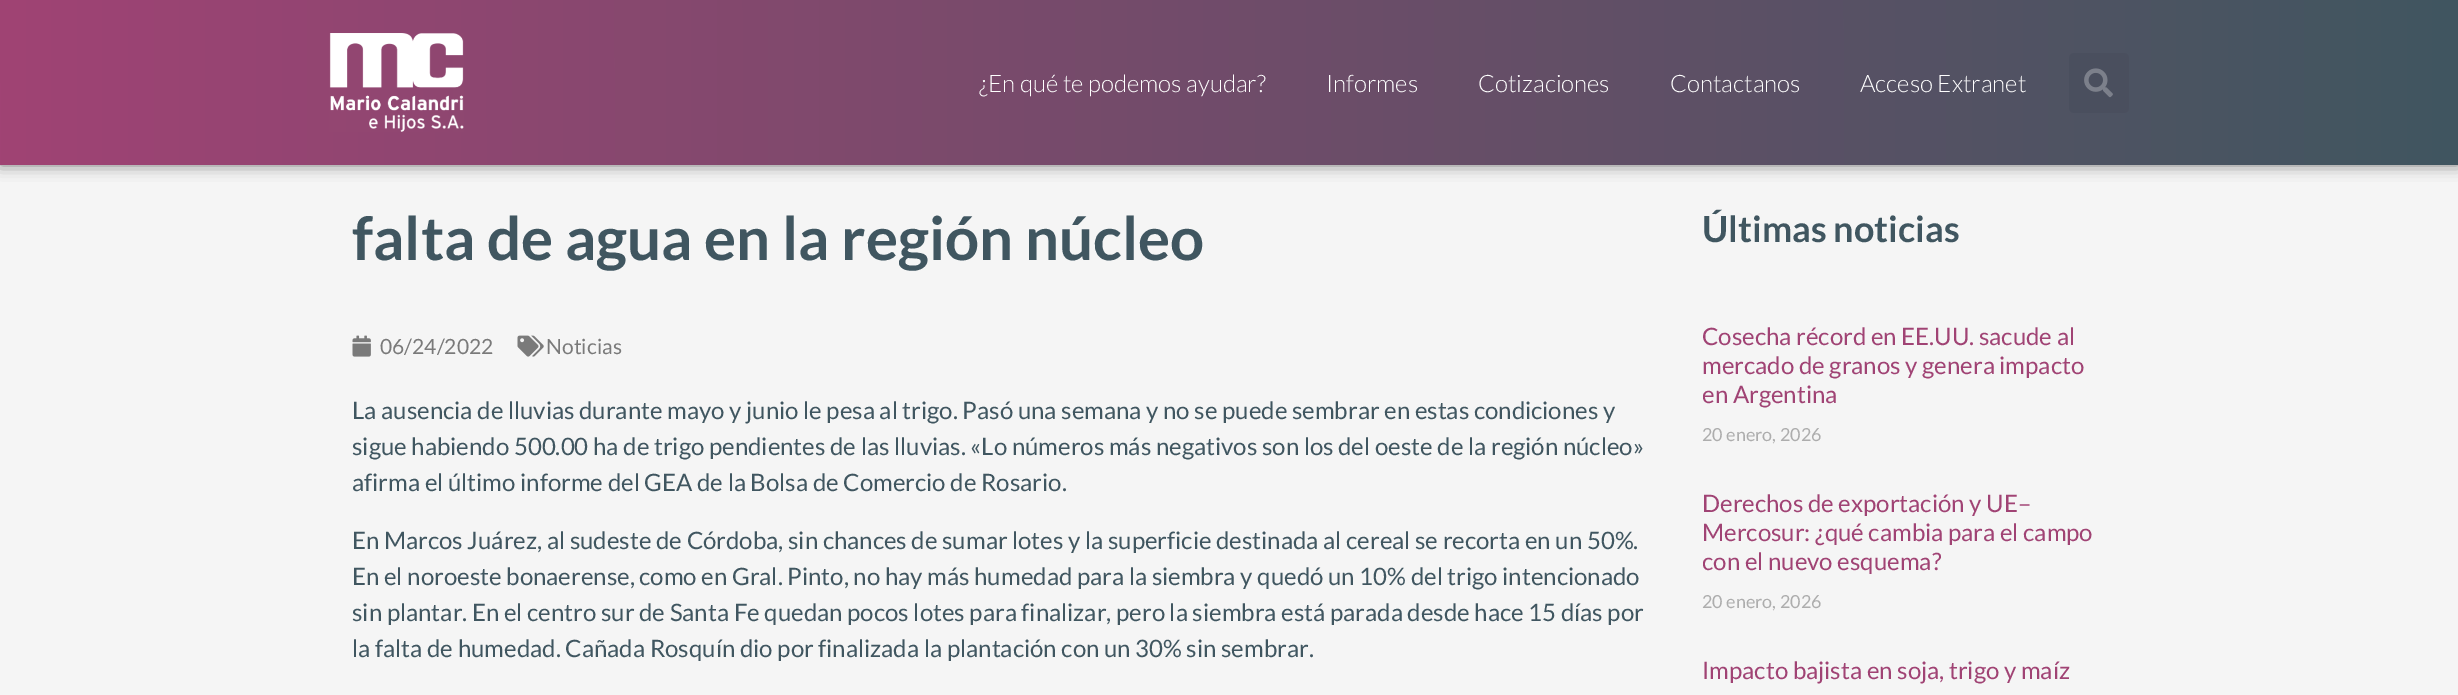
%!PS
<< /PageSize [2458 695] /PageUsesTransparency true >> setpagedevice
/rgb { dup -16 bitshift 255 div exch dup -8 bitshift 255 and 255 div exch 255 and 255 div setrgbcolor } def
/font { [ exch dup neg 0 0 3 -1 roll 0 0 ] selectfont } def
/text { moveto show } def
/alpha { dup .setfillconstantalpha .setstrokeconstantalpha } def
/roundrect { 5 dict begin { /r /h /w /y /x } { exch def } forall
  x r add y moveto x w add y 2 copy h add r arct x w add y h add x 1 index r arct
  x y h add x y r arct x y 2 copy exch w add exch r arct closepath end } def
/shadow { 12 dict begin { /a /b /q /h /w /y /x } { exch def } forall gsave /was 0 def
  9 -2 -9 { dup b mul 4 div /e exch def 1 sub .425 mul 2.718 exch exp 1 add a .99 .min exch div /now exch def
    1 1 now sub 1 was sub div sub alpha /was now def
    w h .min e 2 mul add 0 gt { x e sub y e sub w e 2 mul add h e 2 mul add
      q e add b .6 mul add w h .min 2 div e add .min 0 .max roundrect fill } if } for grestore end } def
/picture { 5 dict begin { /h /w /y /x /name } { exch def } forall
  gsave x y translate w h scale
  w h 8 [w 0 0 h 0 0] name (r) file false 3 colorimage grestore end } def
0 .pushpdf14devicefilter
0 695 translate 1 -1 scale
4 setmiterlimit
/s1 { /Lato-Light 24 font 16#FFFFFF rgb } def
/s2 { /Lato-Bold 60 font 16#405660 rgb } def
/s3 { /Lato-Regular 21 font 16#7A7A7A rgb } def
/s4 { /Lato-Regular 24 font 16#405660 rgb } def
/s5 { /Lato-Bold 36 font 16#405660 rgb } def
/s6 { /Lato-Regular 24 font 16#A04374 rgb } def
/s7 { /Lato-Regular 18 font 16#ADADAD rgb } def
16#F5F5F5 rgb
0 0 2458 695 rectfill
16#000000 rgb
0 0 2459 165 0 7.5 0.5 shadow
gsave 0 0 moveto 2458 0 lineto 2458 165 lineto 0 165 lineto closepath clip newpath
<< /ShadingType 2 /ColorSpace /DeviceRGB /Coords [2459 82 0 83] /Extend [true true] /Function << /FunctionType 2 /Domain [0 1] /C0 [0.251 0.337 0.376] /C1 [0.627 0.263 0.455] /N 1 >> >> shfill grestore
(pic1.raw) 329 33 135 99 picture
s1
(¿En qué te podemos ayudar?) 979 92 text
(Informes) 1326 92 text
(Cotizaciones) 1478 92 text
(Contactanos) 1670 92 text
(Acceso Extranet) 1860 92 text
16#4A4F5E rgb
2069 53 60 60 5 roundrect fill
(pic2.raw) 2084 68 29 30 picture
s2
(falta de agua en la región núcleo) 352 260 text
(pic3.raw) 352 335 19 22 picture
s3
(06/24/2022) 380 354 text
(pic4.raw) 517 335 27 22 picture
(Noticias) 546 354 text
s4
(La ausencia de lluvias durante mayo y junio le pesa al trigo. Pasó una semana y no se puede sembrar en estas condiciones y) 352 419 text
(sigue habiendo 500.00 ha de trigo pendientes de las lluvias. «Lo números más negativos son los del oeste de la región núcleo») 352 455 text
(afirma el último informe del GEA de la Bolsa de Comercio de Rosario.) 352 491 text
(En Marcos Juárez, al sudeste de Córdoba, sin chances de sumar lotes y la superficie destinada al cereal se recorta en un 50%.) 352 549 text
(En el noroeste bonaerense, como en Gral. Pinto, no hay más humedad para la siembra y quedó un 10% del trigo intencionado) 352 585 text
(sin plantar. En el centro sur de Santa Fe quedan pocos lotes para finalizar, pero la siembra está parada desde hace 15 días por) 352 621 text
(la falta de humedad. Cañada Rosquín dio por finalizada la plantación con un 30% sin sembrar.) 352 657 text
s5
(Últimas noticias) 1702 242 text
gsave
1703 321 405 144 rectclip
s6
(Cosecha récord en EE.UU. sacude al) 1702 345 text
grestore
s6
(mercado de granos y genera impacto) 1702 374 text
gsave
1703 321 405 144 rectclip
(en Argentina) 1702 403 text
grestore
s7
(20 enero, 2026) 1702 441 text
s6
(Derechos de exportación y UE–) 1702 512 text
(Mercosur: ¿qué cambia para el campo) 1702 541 text
gsave
1703 488 405 145 rectclip
(con el nuevo esquema?) 1702 570 text
grestore
s7
(20 enero, 2026) 1702 608 text
s6
(Impacto bajista en soja, trigo y maíz) 1702 679 text
.poppdf14devicefilter showpage
